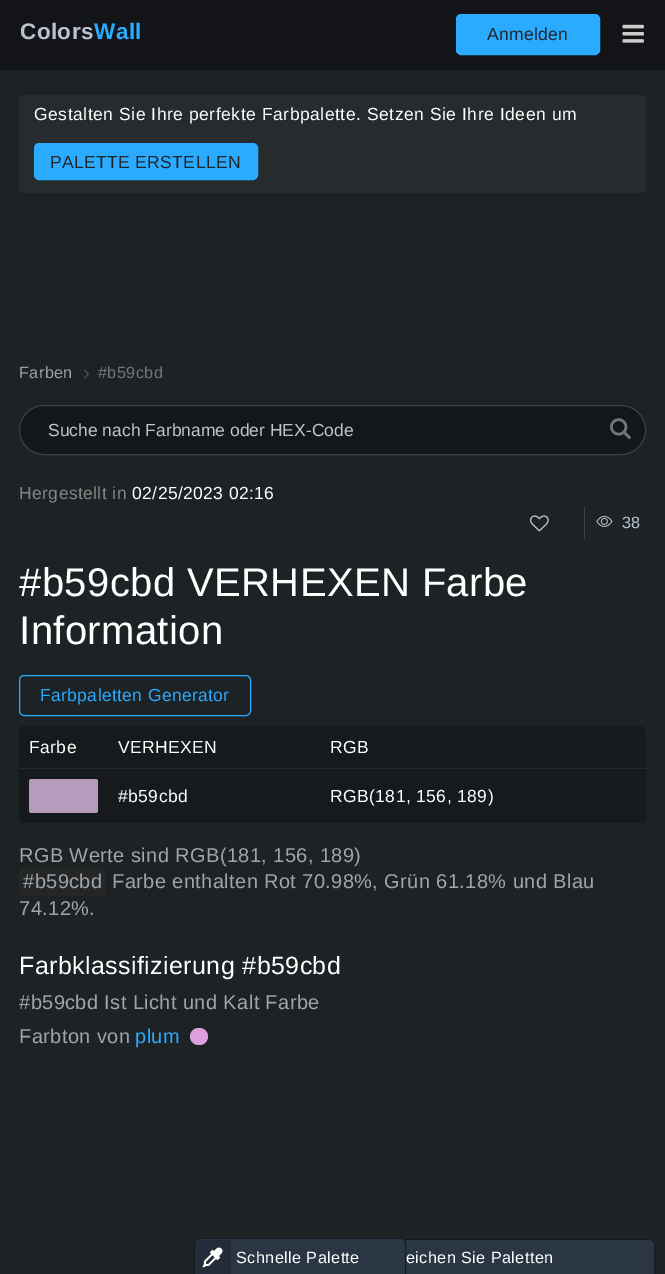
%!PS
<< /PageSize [665 1274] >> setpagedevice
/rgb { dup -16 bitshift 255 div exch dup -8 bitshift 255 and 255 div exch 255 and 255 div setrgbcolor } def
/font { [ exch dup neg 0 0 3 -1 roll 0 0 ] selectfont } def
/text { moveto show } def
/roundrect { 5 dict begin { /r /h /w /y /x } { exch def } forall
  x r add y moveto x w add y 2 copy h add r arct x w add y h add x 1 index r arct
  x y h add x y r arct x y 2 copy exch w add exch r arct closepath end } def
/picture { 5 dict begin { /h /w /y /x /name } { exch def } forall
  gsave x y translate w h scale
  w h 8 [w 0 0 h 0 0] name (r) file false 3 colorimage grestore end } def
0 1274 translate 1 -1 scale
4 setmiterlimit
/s1 { /LiberationSans-Regular 17.5 font 16#C0C4CC rgb } def
16#1D2225 rgb
0 0 665 1274 rectfill
16#1B2022 rgb
-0.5 -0.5 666 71 rectstroke
16#121417 rgb
0 0 665 70 rectfill
/LiberationSans-Bold 22.5 font
16#B9C3D0 rgb
20 39 moveto 0.4 0 (Colors) ashow
16#2BABFF rgb
94 39 moveto 0.4 0 (Wall) ashow
456.5 14.5 143 40 4.5 roundrect gsave fill grestore
stroke
/LiberationSans-Regular 17.5 font
16#212529 rgb
487 40 moveto 0.35 0 (Anmelden) ashow
(pic1.raw) 622 24 22 19 picture
16#262B2E rgb
19 95 627 98 5 roundrect fill
16#FFFFFF rgb
34 120 moveto 0.53 0 (Gestalten Sie Ihre perfekte Farbpalette. Setzen Sie Ihre Ideen um) ashow
16#2BABFF rgb
34.5 143.5 223 36 4.5 roundrect gsave fill grestore
stroke
16#212529 rgb
50 168 moveto 0.35 0 (PALETTE ERSTELLEN) ashow
/LiberationSans-Regular 16.25 font
16#A0A0A0 rgb
19 378 moveto 0.4 0 (Farben) ashow
(pic2.raw) 84 369 5 10 picture
16#757474 rgb
98 378 moveto 0.4 0 (#b59cbd) ashow
16#14171A rgb
19.5 405.5 626 49 24.5 roundrect gsave fill grestore
16#404040 rgb
stroke
s1
(Suche nach Farbname oder HEX-Code) 48 436 text
(pic3.raw) 610 418 22 22 picture
16#868585 rgb
19 499 moveto 0.4 0 (Hergestellt in) ashow
16#FFFFFF rgb
132 499 moveto 0.4 0 (02/25/2023 02:16) ashow
(pic4.raw) 530 515 19 17 picture
16#3F4346 rgb
584 506 1 33 rectfill
(pic5.raw) 596 515 17 12 picture
/LiberationSans-Regular 16.25 font
16#B9C3D0 rgb
622 528 moveto 0.4 0 (38) ashow
/LiberationSans-Regular 40 font
16#FFFFFF rgb
19 596 moveto 0.4 0 (#b59cbd VERHEXEN Farbe) ashow
19 644 moveto 0.4 0 (Information) ashow
16#2BABFF rgb
19.5 675.5 231 40 4.5 roundrect stroke
/LiberationSans-Regular 17.5 font
40 701 moveto 0.35 0 (Farbpaletten Generator) ashow
16#161A1C rgb
19 726 627 97 5 roundrect fill
16#FFFFFF rgb
29 753 moveto 0.4 0 (Farbe) ashow
118 753 moveto 0.4 0 (VERHEXEN) ashow
330 753 moveto 0.4 0 (RGB) ashow
16#B59CBD rgb
29 779 69 34 2.5 roundrect fill
16#FFFFFF rgb
118 802 moveto 0.4 0 (#b59cbd) ashow
16#242A2E rgb
19 768 629 1 rectfill
16#FFFFFF rgb
330 802 moveto 0.4 0 (RGB\(181, 156, 189\)) ashow
/LiberationSans-Regular 20 font
16#9DA6AE rgb
19 862 moveto 0.4 0 (RGB Werte sind RGB\(181, 156, 189\)) ashow
16#262626 rgb
19 868 87 28 5 roundrect fill
16#9DA6AE rgb
23 888 moveto 0.4 0 (#b59cbd) ashow
112 888 moveto 0.4 0 (Farbe enthalten Rot 70.98%, Grün 61.18% und Blau) ashow
19 915 moveto 0.4 0 (74.12%.) ashow
/LiberationSans-Regular 25 font
16#FFFFFF rgb
19 974 moveto 0.4 0 (Farbklassifizierung #b59cbd) ashow
/LiberationSans-Regular 20 font
16#9DA6AE rgb
19 1009 moveto 0.4 0 (#b59cbd Ist Licht und Kalt Farbe) ashow
19 1043 moveto 0.4 0 (Farbton von) ashow
16#2BABFF rgb
135 1043 moveto 0.4 0 (plum) ashow
16#DDA0DD rgb
190 1028 18 17 8.5 roundrect fill
16#2B3645 rgb
360 1239 moveto 650 1239 lineto 653 1239 655 1241 655 1244 curveto 655 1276 lineto 355 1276 lineto 355 1244 lineto 355 1241 357 1239 360 1239 curveto closepath fill
16#151A22 rgb
360 1239 moveto 650 1239 lineto 653 1239 655 1241 655 1244 curveto 655 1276 lineto 355 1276 lineto 355 1244 lineto 355 1241 357 1239 360 1239 curveto closepath 360 1240 moveto 650 1240 lineto 652 1240 654 1242 654 1244 curveto 654 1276 lineto 356 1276 lineto 356 1244 lineto 356 1242 358 1240 360 1240 curveto closepath eofill
16#2B3645 rgb
199 1239 moveto 401 1239 lineto 404 1239 406 1241 406 1244 curveto 406 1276 lineto 194 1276 lineto 194 1244 lineto 194 1241 196 1239 199 1239 curveto closepath fill
16#151A22 rgb
199 1238 moveto 401 1238 lineto 404 1238 406 1240 406 1243 curveto 406 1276 lineto 194 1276 lineto 194 1243 lineto 194 1240 196 1238 199 1238 curveto closepath 199 1239 moveto 401 1239 lineto 403 1239 405 1241 405 1243 curveto 405 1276 lineto 195 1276 lineto 195 1243 lineto 195 1241 197 1239 199 1239 curveto closepath eofill
16#232C38 rgb
199 1240 moveto 231 1240 lineto 231 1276 lineto 195 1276 lineto 195 1244 lineto 195 1242 197 1240 199 1240 curveto closepath fill
(pic6.raw) 202 1247 21 21 picture
/LiberationSans-Regular 16.25 font
16#FFFFFF rgb
236 1263 moveto 0.4 0 (Schnelle Palette) ashow
406 1263 moveto 0.4 0 (eichen Sie Paletten) ashow
showpage
